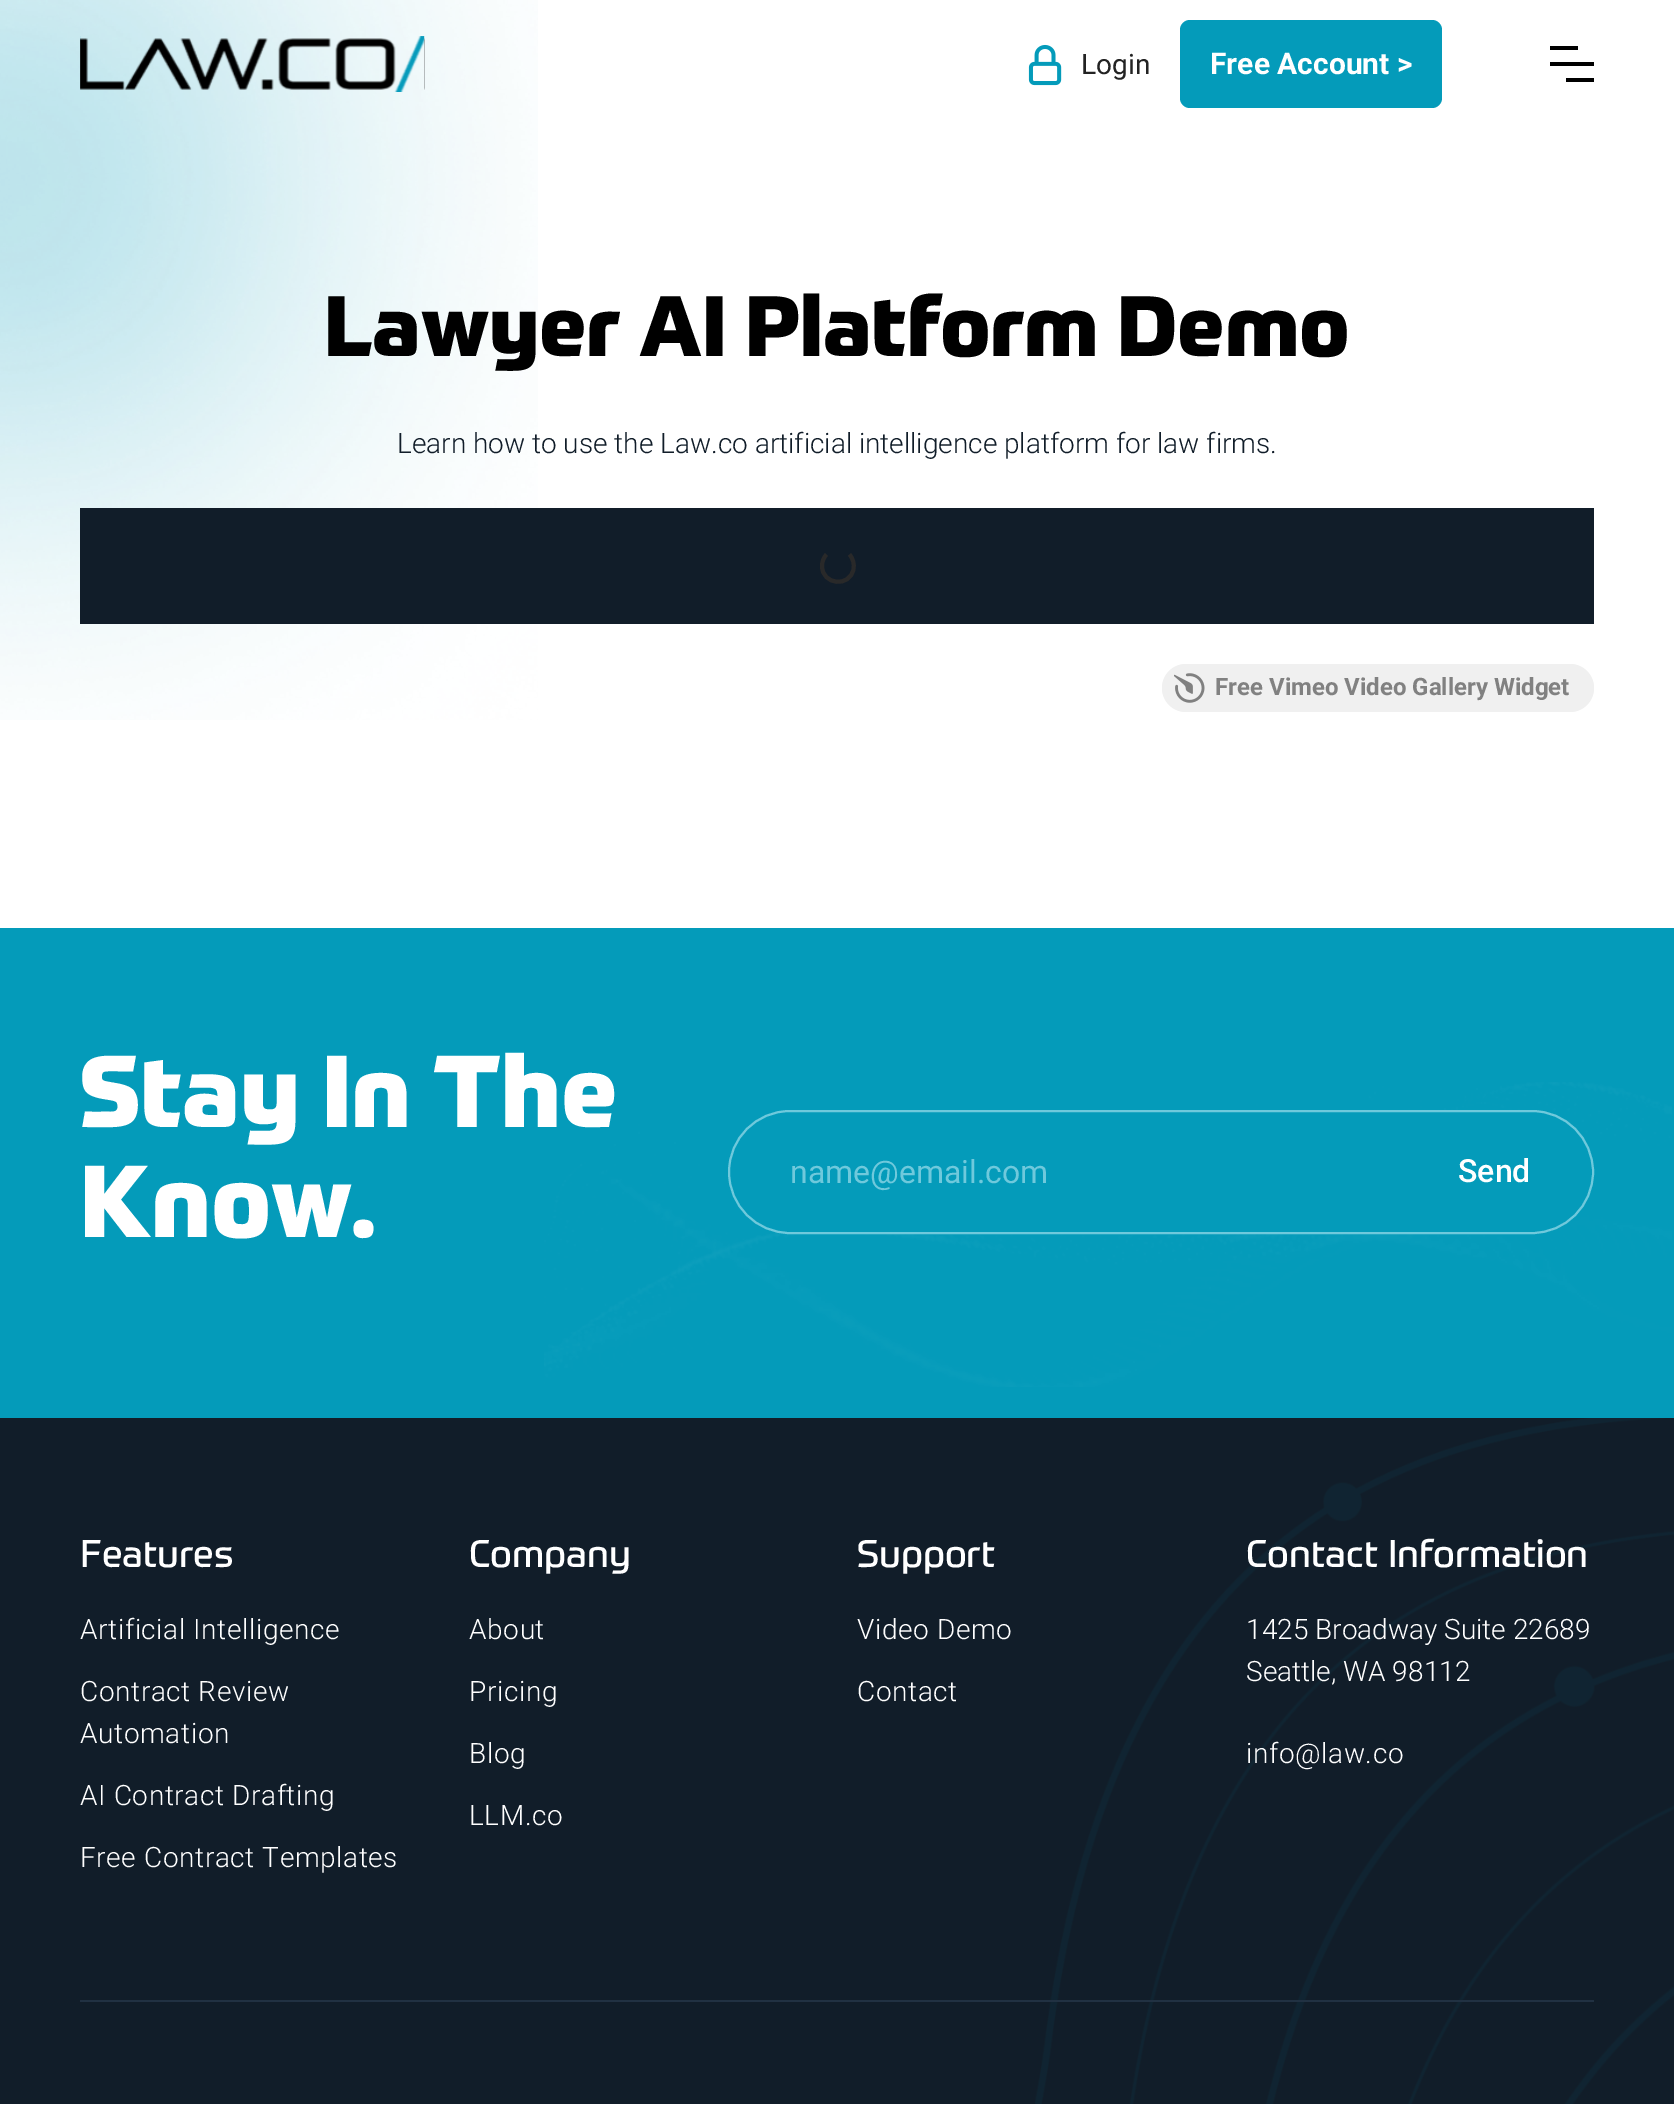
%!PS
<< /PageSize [1674 2104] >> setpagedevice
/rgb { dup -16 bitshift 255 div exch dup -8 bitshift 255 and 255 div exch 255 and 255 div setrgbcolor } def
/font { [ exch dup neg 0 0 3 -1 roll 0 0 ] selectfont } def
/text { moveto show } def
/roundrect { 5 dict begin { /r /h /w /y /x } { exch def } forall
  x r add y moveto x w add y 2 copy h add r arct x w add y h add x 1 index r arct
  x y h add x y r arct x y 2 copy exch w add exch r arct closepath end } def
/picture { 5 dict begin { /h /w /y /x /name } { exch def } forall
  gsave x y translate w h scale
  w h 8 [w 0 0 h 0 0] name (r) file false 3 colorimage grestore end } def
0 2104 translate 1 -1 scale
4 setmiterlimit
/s1 { /Roboto-Regular 28 font 16#232323 rgb } def
/s2 { /Roboto-Bold 30 font 16#FFFFFF rgb } def
/s3 { /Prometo-Bold 84 font 16#000000 rgb } def
/s4 { /Roboto-Light 28 font 16#111D29 rgb } def
/s5 { /Roboto-Bold 24 font 16#818181 rgb } def
/s6 { /Prometo-Bold 100 font 16#FFFFFF rgb } def
/s7 { /Roboto-Regular 32 font 16#6FC9DC rgb } def
/s8 { /Roboto-Medium 32 font 16#FFFFFF rgb } def
/s9 { /Prometo-Regular 38 font 16#FFFFFF rgb } def
/s10 { /Roboto-Light 28 font 16#FFFFFF rgb } def
16#FFFFFF rgb
0 0 1674 2104 rectfill
(pic4.raw) 0 0 538 720 picture
(pic1.raw) 80 36 345 56 picture
(pic2.raw) 1028 44 34 42 picture
s1
(Login) 1081 74 text
16#049BBA rgb
1180 20 262 88 10 roundrect fill
s2
(Free Account >) 1210 74 text
(pic3.raw) 1550 46 44 36 picture
s3
(Lawyer AI Platform Demo) 324 356 text
s4
(Learn how to use the Law.co artificial intelligence platform for law firms.) 397 453 text
80 508 1514 116 rectfill
16#292929 rgb
4 setlinewidth
849.5 554.5 moveto 853 558.5 854.5 564 853.5 569 curveto 850 588 822 585 822 566 curveto 822 562 823.5 557.5 826.5 554.5 curveto stroke
16#F0F0F0 rgb
1162 664 432 48 24 roundrect fill
(pic5.raw) 1174 673 31 30 picture
s5
(Free Vimeo Video Gallery Widget) 1215 695 text
16#049BBA rgb
0 928 1674 490 rectfill
(pic6.raw) 544 1082 1128 305 picture
s6
(Stay In The) 80 1127 text
(Know.) 80 1237 text
16#049BBA rgb
729 1111 864 122 61 roundrect gsave fill grestore
16#6FC9DC rgb
2 setlinewidth
stroke
s7
(name@email.com) 790 1183 text
s8
(Send) 1458 1182 text
16#111D29 rgb
0 1418 1674 686 rectfill
(pic7.raw) 1035 1418 639 686 picture
s9
(Features) 80 1567 text
/Roboto-Light 28 font
80 1639 moveto 0.6 0 (Artificial Intelligence) ashow
80 1701 moveto 0.6 0 (Contract Review) ashow
80 1743 moveto 0.6 0 (Automation) ashow
80 1805 moveto 0.6 0 (AI Contract Drafting) ashow
80 1867 moveto 0.6 0 (Free Contract Templates) ashow
s9
(Company) 469 1567 text
/Roboto-Light 28 font
469 1639 moveto 0.6 0 (About) ashow
469 1701 moveto 0.6 0 (Pricing) ashow
469 1763 moveto 0.6 0 (Blog) ashow
469 1825 moveto 0.6 0 (LLM.co) ashow
s9
(Support) 857 1567 text
/Roboto-Light 28 font
857 1639 moveto 0.6 0 (Video Demo) ashow
857 1701 moveto 0.6 0 (Contact) ashow
s9
(Contact Information) 1246 1567 text
s10
(1425 Broadway Suite 22689) 1246 1639 text
(Seattle, WA 98112) 1246 1681 text
1246 1763 moveto 0.6 0 (info@law.co) ashow
16#213142 rgb
80 2000 1514 2 rectfill
showpage
